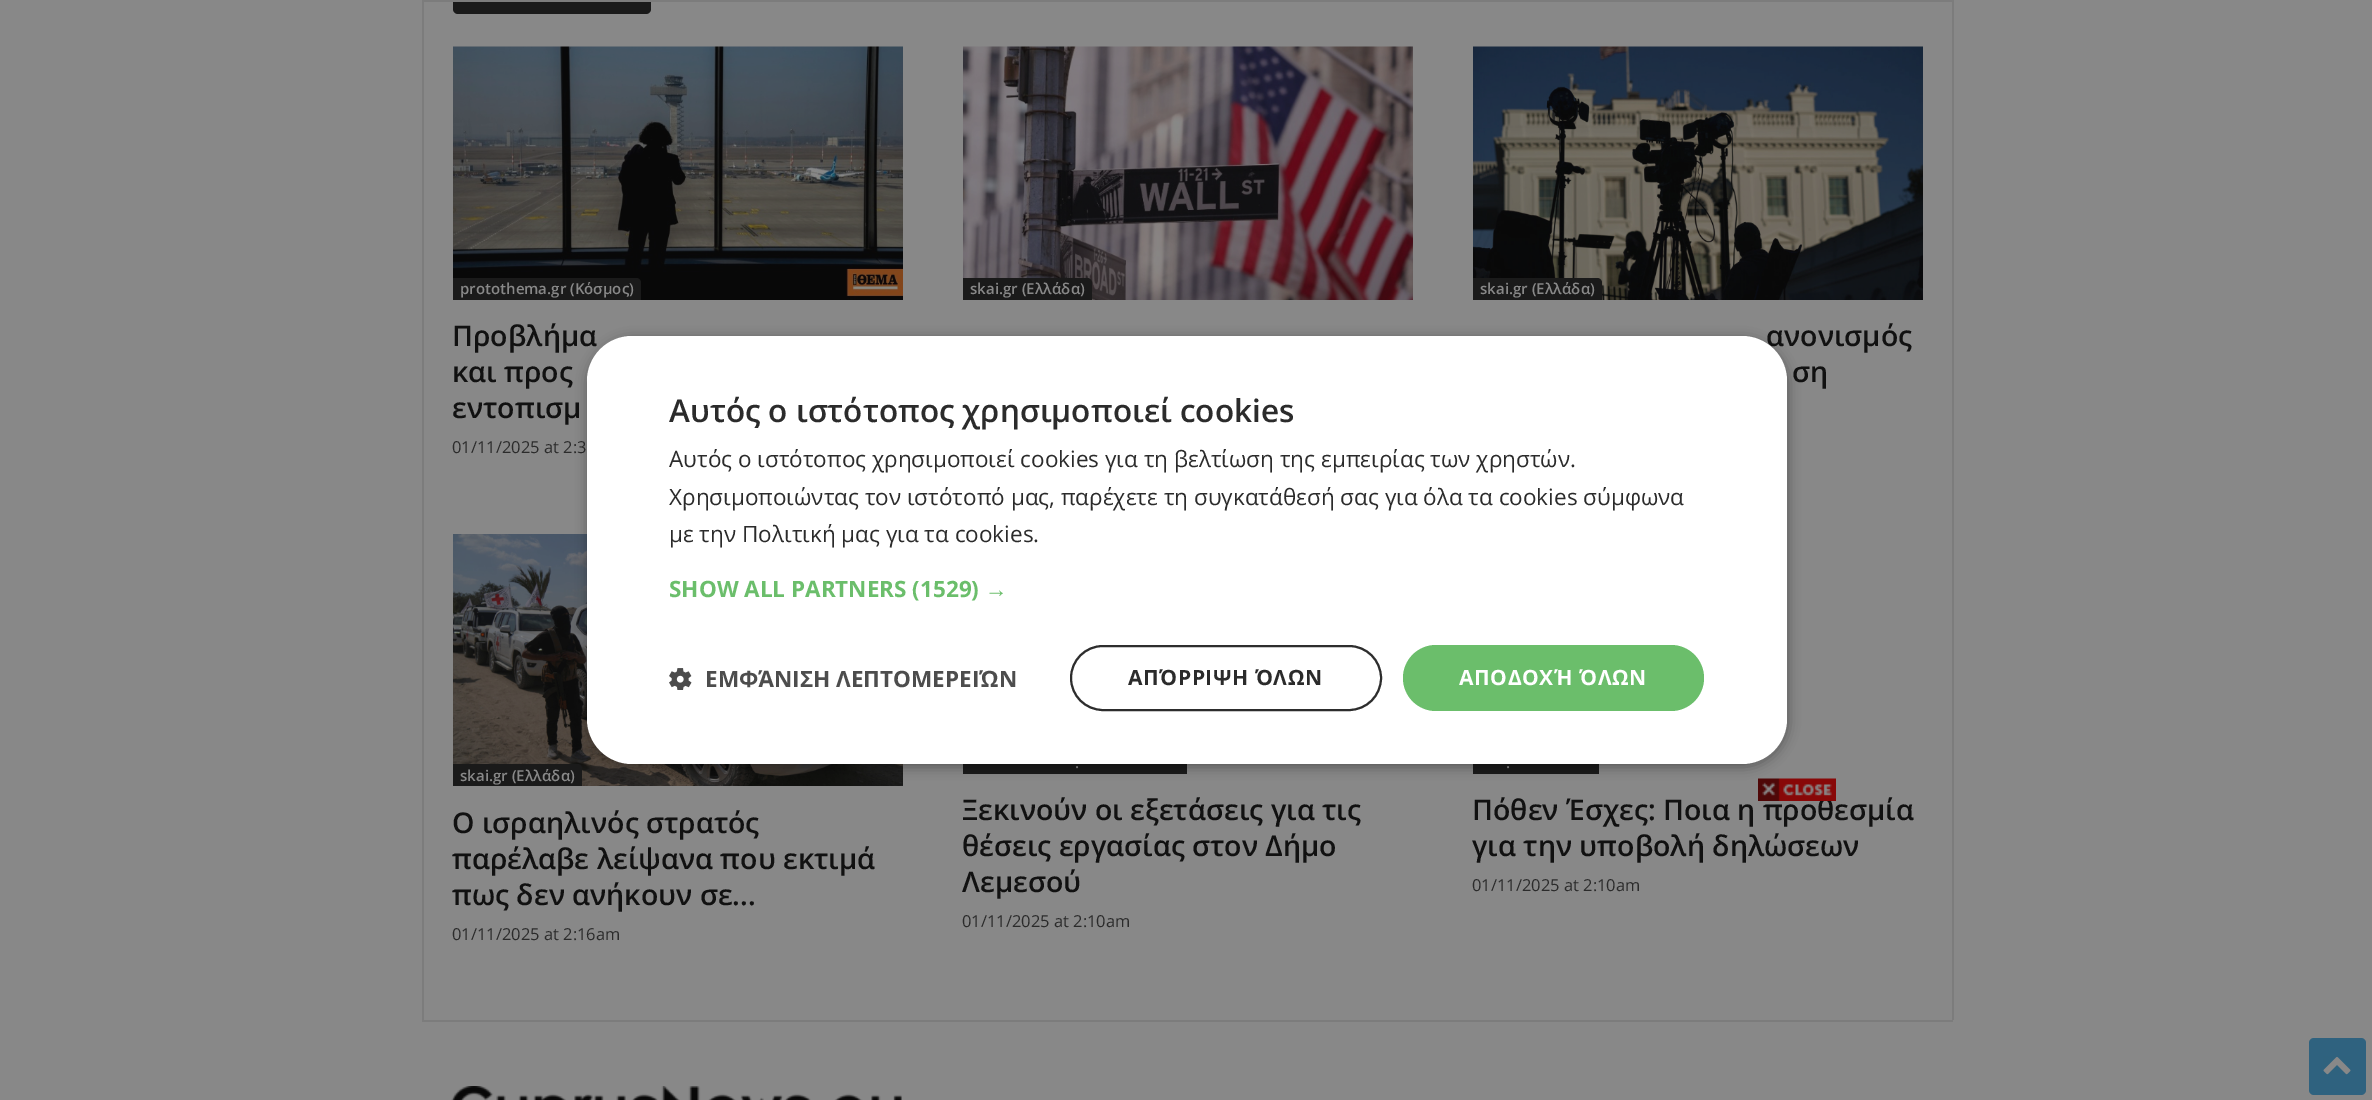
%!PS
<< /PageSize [2372 1100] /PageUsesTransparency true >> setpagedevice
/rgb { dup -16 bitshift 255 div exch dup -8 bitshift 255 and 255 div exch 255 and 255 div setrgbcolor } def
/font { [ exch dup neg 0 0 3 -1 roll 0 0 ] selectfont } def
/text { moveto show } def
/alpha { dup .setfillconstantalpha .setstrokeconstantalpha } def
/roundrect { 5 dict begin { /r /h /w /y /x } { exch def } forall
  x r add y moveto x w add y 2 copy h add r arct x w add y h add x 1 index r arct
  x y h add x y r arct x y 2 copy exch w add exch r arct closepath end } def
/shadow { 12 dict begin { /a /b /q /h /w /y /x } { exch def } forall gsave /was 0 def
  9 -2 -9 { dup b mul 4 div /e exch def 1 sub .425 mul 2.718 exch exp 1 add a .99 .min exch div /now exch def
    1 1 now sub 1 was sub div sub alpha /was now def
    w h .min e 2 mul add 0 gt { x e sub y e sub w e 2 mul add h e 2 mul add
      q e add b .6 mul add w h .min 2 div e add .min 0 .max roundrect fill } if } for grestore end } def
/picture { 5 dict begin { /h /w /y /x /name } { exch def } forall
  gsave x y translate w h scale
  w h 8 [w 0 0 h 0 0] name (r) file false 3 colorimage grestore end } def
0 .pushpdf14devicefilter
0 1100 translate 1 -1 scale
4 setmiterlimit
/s1 { /OpenSans-SemiBold 15 font 16#888888 rgb } def
/s2 { /OpenSans-SemiBold 28.5 font 16#111111 rgb } def
/s3 { /OpenSans-Regular 16.5 font 16#2B2B2B rgb } def
/s4 { /OpenSans-SemiBold 31.5 font 16#2B2B2B rgb } def
/s5 { /OpenSans-Regular 22.5 font 16#2B2B2B rgb } def
/s6 { /OpenSans-Bold 22.5 font 16#6BBE6B rgb } def
/s7 { /LiberationSans-Bold 22.5 font 16#6BBE6B rgb } def
/s8 { /OpenSans-Bold 22.5 font 16#4D4D4D rgb } def
16#888888 rgb
0 0 2372 1100 rectfill
16#7C7C7C rgb
422 0 2 1020 rectfill
16#1A1A1A rgb
453 -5 198 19 5 roundrect fill
16#7C7C7C rgb
1952 0 2 1020 rectfill
422 0 1531 2 rectfill
422 1020 1531 2 rectfill
(pic1.raw) 453 46 450 254 picture
16#1A1A1A rgb
453 278 moveto 636 278 lineto 639 278 641 280 641 283 curveto 641 300 lineto 453 300 lineto closepath fill
s1
(protothema.gr \(Κόσμος\)) 460 294 text
s2
(Προβλήμα) 452 346 text
(και προς) 452 382 text
(εντοπισμ) 452 418 text
s3
(01/11/2025 at 2:3) 452 453 text
(pic2.raw) 963 46 450 254 picture
16#1A1A1A rgb
963 278 moveto 1087 278 lineto 1090 278 1092 280 1092 283 curveto 1092 300 lineto 963 300 lineto closepath fill
s1
(skai.gr \(Ελλάδα\)) 970 294 text
(pic3.raw) 1473 46 450 254 picture
16#1A1A1A rgb
1473 278 moveto 1597 278 lineto 1600 278 1602 280 1602 283 curveto 1602 300 lineto 1473 300 lineto closepath fill
s1
(skai.gr \(Ελλάδα\)) 1480 294 text
s2
(ανονισμός) 1766 346 text
(ση) 1792 382 text
(pic4.raw) 453 534 450 252 picture
16#1A1A1A rgb
453 764 moveto 577 764 lineto 580 764 582 766 582 769 curveto 582 786 lineto 453 786 lineto closepath fill
s1
(skai.gr \(Ελλάδα\)) 460 781 text
s2
(Ο ισραηλινός στρατός) 452 833 text
(παρέλαβε λείψανα που εκτιμά) 452 869 text
(πως δεν ανήκουν σε...) 452 905 text
s3
(01/11/2025 at 2:16am) 452 940 text
16#1A1A1A rgb
963 764 224 10 rectfill
s1
(.) 1075 768 text
s2
(Ξεκινούν οι εξετάσεις για τις) 962 820 text
(θέσεις εργασίας στον Δήμο) 962 856 text
(Λεμεσού) 962 892 text
s3
(01/11/2025 at 2:10am) 962 927 text
16#1A1A1A rgb
1473 764 126 10 rectfill
s1
(.) 1506 768 text
s2
(Πόθεν Έσχες: Ποια η προθεσμία) 1472 820 text
(για την υποβολή δηλώσεων) 1472 856 text
s3
(01/11/2025 at 2:10am) 1472 891 text
(pic5.raw) 451 1086 451 14 picture
(pic7.raw) 1758 778 78 23 picture
16#000000 rgb
588 339 1200 428 45 6 0.35 shadow
16#FFFFFF rgb
587 336 1200 428 45 roundrect fill
s4
(Αυτός ο ιστότοπος χρησιμοποιεί cookies) 669 422 text
s5
(Αυτός ο ιστότοπος χρησιμοποιεί cookies για τη βελτίωση της εμπειρίας των χρηστών.) 669 467 text
(Χρησιμοποιώντας τον ιστότοπό μας, παρέχετε τη συγκατάθεσή σας για όλα τα cookies σύμφωνα) 669 505 text
(με την Πολιτική μας για τα cookies.) 669 542 text
s6
(SHOW ALL PARTNERS \(1529\)) 669 597 text
s7
(→) 985 597 text
(pic6.raw) 669 668 23 22 picture
s8
(ΕΜΦΆΝΙΣΗ ΛΕΠΤΟΜΕΡΕΙΏΝ) 705 687 text
16#2D2D2D rgb
2 setlinewidth
1071 646 310 64 32 roundrect stroke
/OpenSans-Bold 21 font
16#2B2B2B rgb
1128 685 moveto 0.6 0 (ΑΠΌΡΡΙΨΗ ΌΛΩΝ) ashow
16#6BBE6B rgb
1403 645 301 66 33 roundrect fill
16#FFFFFF rgb
1459 685 moveto 0.6 0 (ΑΠΟΔΟΧΉ ΌΛΩΝ) ashow
16#2F627F rgb
2309 1038 57 57 5 roundrect fill
(pic8.raw) 2323 1056 28 19 picture
.poppdf14devicefilter showpage
